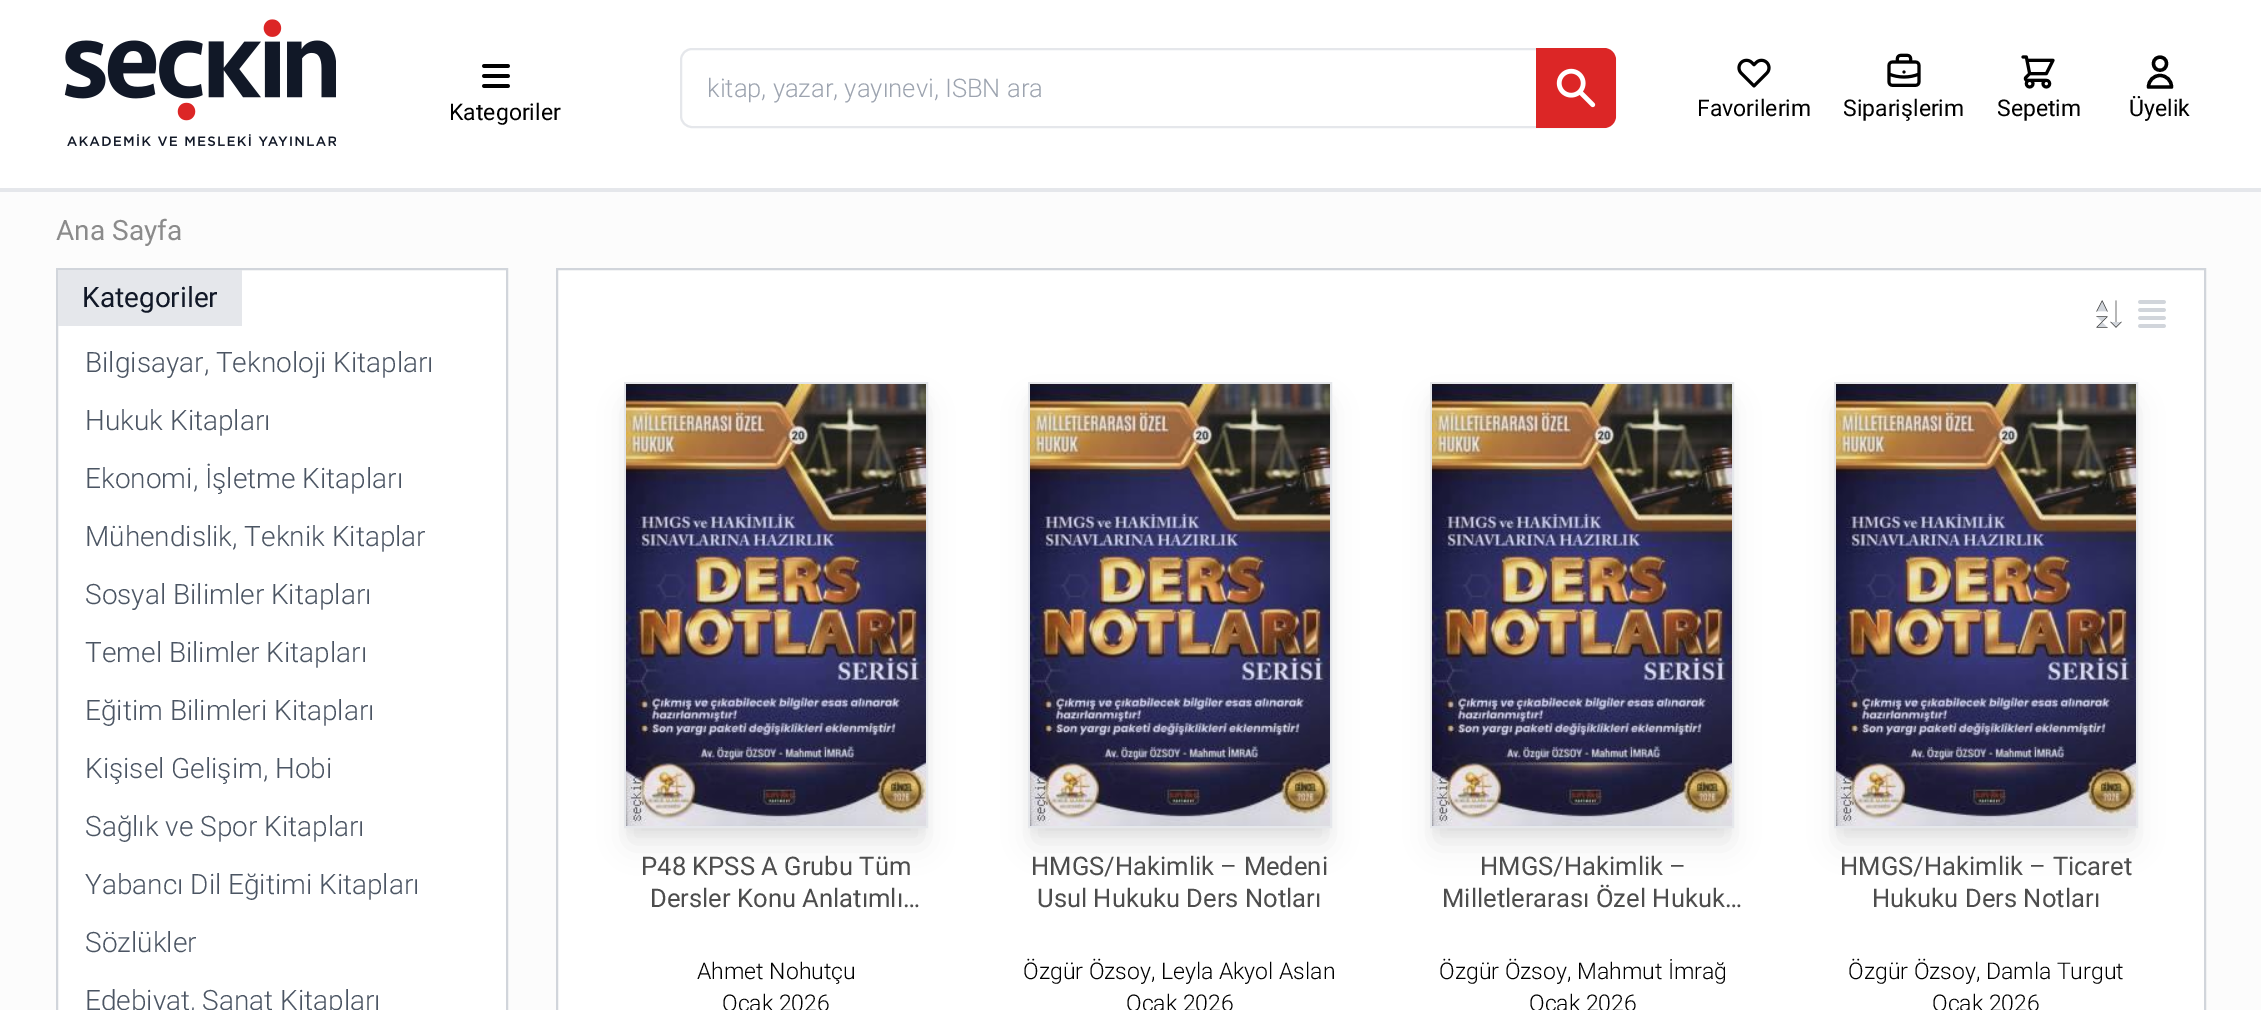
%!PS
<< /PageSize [2261 1010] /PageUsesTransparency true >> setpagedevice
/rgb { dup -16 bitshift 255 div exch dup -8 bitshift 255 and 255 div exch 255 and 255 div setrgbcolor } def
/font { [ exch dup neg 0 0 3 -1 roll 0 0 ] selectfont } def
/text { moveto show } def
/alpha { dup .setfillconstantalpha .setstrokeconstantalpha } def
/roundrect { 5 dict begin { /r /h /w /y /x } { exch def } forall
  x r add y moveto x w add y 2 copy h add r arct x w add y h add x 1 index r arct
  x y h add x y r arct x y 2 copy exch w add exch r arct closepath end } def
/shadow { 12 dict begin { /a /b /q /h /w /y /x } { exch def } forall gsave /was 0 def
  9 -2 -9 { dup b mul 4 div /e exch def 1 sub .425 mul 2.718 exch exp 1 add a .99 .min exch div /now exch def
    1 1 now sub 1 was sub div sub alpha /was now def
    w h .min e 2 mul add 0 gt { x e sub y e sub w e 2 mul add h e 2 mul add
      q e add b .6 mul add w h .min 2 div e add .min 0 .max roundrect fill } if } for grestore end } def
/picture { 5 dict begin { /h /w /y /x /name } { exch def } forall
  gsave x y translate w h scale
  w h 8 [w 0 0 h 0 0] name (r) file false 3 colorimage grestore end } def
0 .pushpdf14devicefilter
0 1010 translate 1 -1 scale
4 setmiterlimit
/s1 { /Roboto-Light 25.6 font 16#9CA3AF rgb } def
/s2 { /Roboto-Regular 23 font 16#000000 rgb } def
/s3 { /Roboto-Regular 28 font 16#8B8B8B rgb } def
/s4 { /Roboto-Regular 28 font 16#111827 rgb } def
/s5 { /Roboto-Light 28 font 16#4B5563 rgb } def
/s6 { /Roboto-Regular 25.6 font 16#4D4D4D rgb } def
/s7 { /Roboto-Light 23 font 16#000000 rgb } def
16#FFFFFF rgb
0 0 2261 1010 rectfill
16#E5E7EB rgb
0 188 2261 4 rectfill
(pic1.raw) 64 19 272 128 picture
2 setlinewidth
681 49 934 78 11 roundrect stroke
s1
(kitap, yazar, yayınevi, ISBN ara) 707 97 text
16#DC2626 rgb
1536 48 moveto 1604 48 lineto 1610.5 48 1616 53.5 1616 60 curveto 1616 116 lineto 1616 122.5 1610.5 128 1604 128 curveto 1536 128 lineto closepath fill
(pic2.raw) 1556 68 40 40 picture
(pic3.raw) 482 64 28 24 picture
s2
(Kategoriler) 449 120 text
(pic4.raw) 1737 58 34 30 picture
(Favorilerim) 1697 116 text
(pic5.raw) 1887 53 34 34 picture
(Siparişlerim) 1843 116 text
(pic6.raw) 2021 55 34 34 picture
(Sepetim) 1997 116 text
3.3 setlinewidth
1 setlinecap
1 setlinejoin
2166.5 63.5 moveto 2166.5 72.5 2153.5 72.5 2153.5 63.5 curveto 2153.5 55 2166.5 55 2166.5 63.5 curveto closepath 2160 75.5 moveto 2153.5 75.5 2148.5 80.5 2148.5 87 curveto 2171.5 87 lineto 2171.5 80.5 2166.5 75.5 2160 75.5 curveto closepath stroke
(Üyelik) 2129 116 text
16#FCFCFC rgb
0 192 2261 818 rectfill
s3
(Ana Sayfa) 56 240 text
16#FFFFFF rgb
57 269 moveto 507 269 lineto 507 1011 lineto 57 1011 lineto closepath gsave fill grestore
16#D1D5DB rgb
2 setlinewidth
0 setlinecap
0 setlinejoin
stroke
16#E5E7EB rgb
58 270 184 56 rectfill
s4
(Kategoriler) 82 307 text
s5
(Bilgisayar, Teknoloji Kitapları) 85 372 text
(Hukuk Kitapları) 85 430 text
(Ekonomi, İşletme Kitapları) 85 488 text
(Mühendislik, Teknik Kitaplar) 85 546 text
(Sosyal Bilimler Kitapları) 85 604 text
(Temel Bilimler Kitapları) 85 662 text
(Eğitim Bilimleri Kitapları) 85 720 text
(Kişisel Gelişim, Hobi) 85 778 text
(Sağlık ve Spor Kitapları) 85 836 text
(Yabancı Dil Eğitimi Kitapları) 85 894 text
(Sözlükler) 85 952 text
(Edebiyat, Sanat Kitapları) 85 1010 text
16#FFFFFF rgb
557 269 moveto 2205 269 lineto 2205 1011 lineto 557 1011 lineto closepath gsave fill grestore
16#D1D5DB rgb
stroke
(pic7.raw) 2096 300 26 28 picture
(pic8.raw) 2138 300 28 28 picture
16#000000 rgb
628 394 296 438 0 6 0.05 shadow
630 408 292 434 0 15 0.1 shadow
16#E5E7EB rgb
625 383 302 444 rectstroke
(pic9.raw) 626 384 300 442 picture
s6
(P48 KPSS A Grubu Tüm) 641 875 text
(Dersler Konu Anlatımlı…) 650 907 text
s7
(Ahmet Nohutçu) 697 979 text
(Ocak 2026) 722 1011 text
1032 394 296 438 0 6 0.05 shadow
1034 408 292 434 0 15 0.1 shadow
16#E5E7EB rgb
1029 383 302 444 rectstroke
(pic10.raw) 1030 384 300 442 picture
s6
(HMGS/Hakimlik – Medeni) 1031 875 text
(Usul Hukuku Ders Notları) 1037 907 text
s7
(Özgür Özsoy, Leyla Akyol Aslan) 1023 979 text
(Ocak 2026) 1126 1011 text
1434 394 296 438 0 6 0.05 shadow
1436 408 292 434 0 15 0.1 shadow
16#E5E7EB rgb
1431 383 302 444 rectstroke
(pic11.raw) 1432 384 300 442 picture
s6
(HMGS/Hakimlik –) 1480 875 text
(Milletlerarası Özel Hukuk…) 1442 907 text
s7
(Özgür Özsoy, Mahmut İmrağ) 1439 979 text
(Ocak 2026) 1529 1011 text
1838 394 296 438 0 6 0.05 shadow
1840 408 292 434 0 15 0.1 shadow
16#E5E7EB rgb
1835 383 302 444 rectstroke
(pic12.raw) 1836 384 300 442 picture
s6
(HMGS/Hakimlik – Ticaret) 1840 875 text
(Hukuku Ders Notları) 1872 907 text
s7
(Özgür Özsoy, Damla Turgut) 1848 979 text
(Ocak 2026) 1932 1011 text
.poppdf14devicefilter showpage
